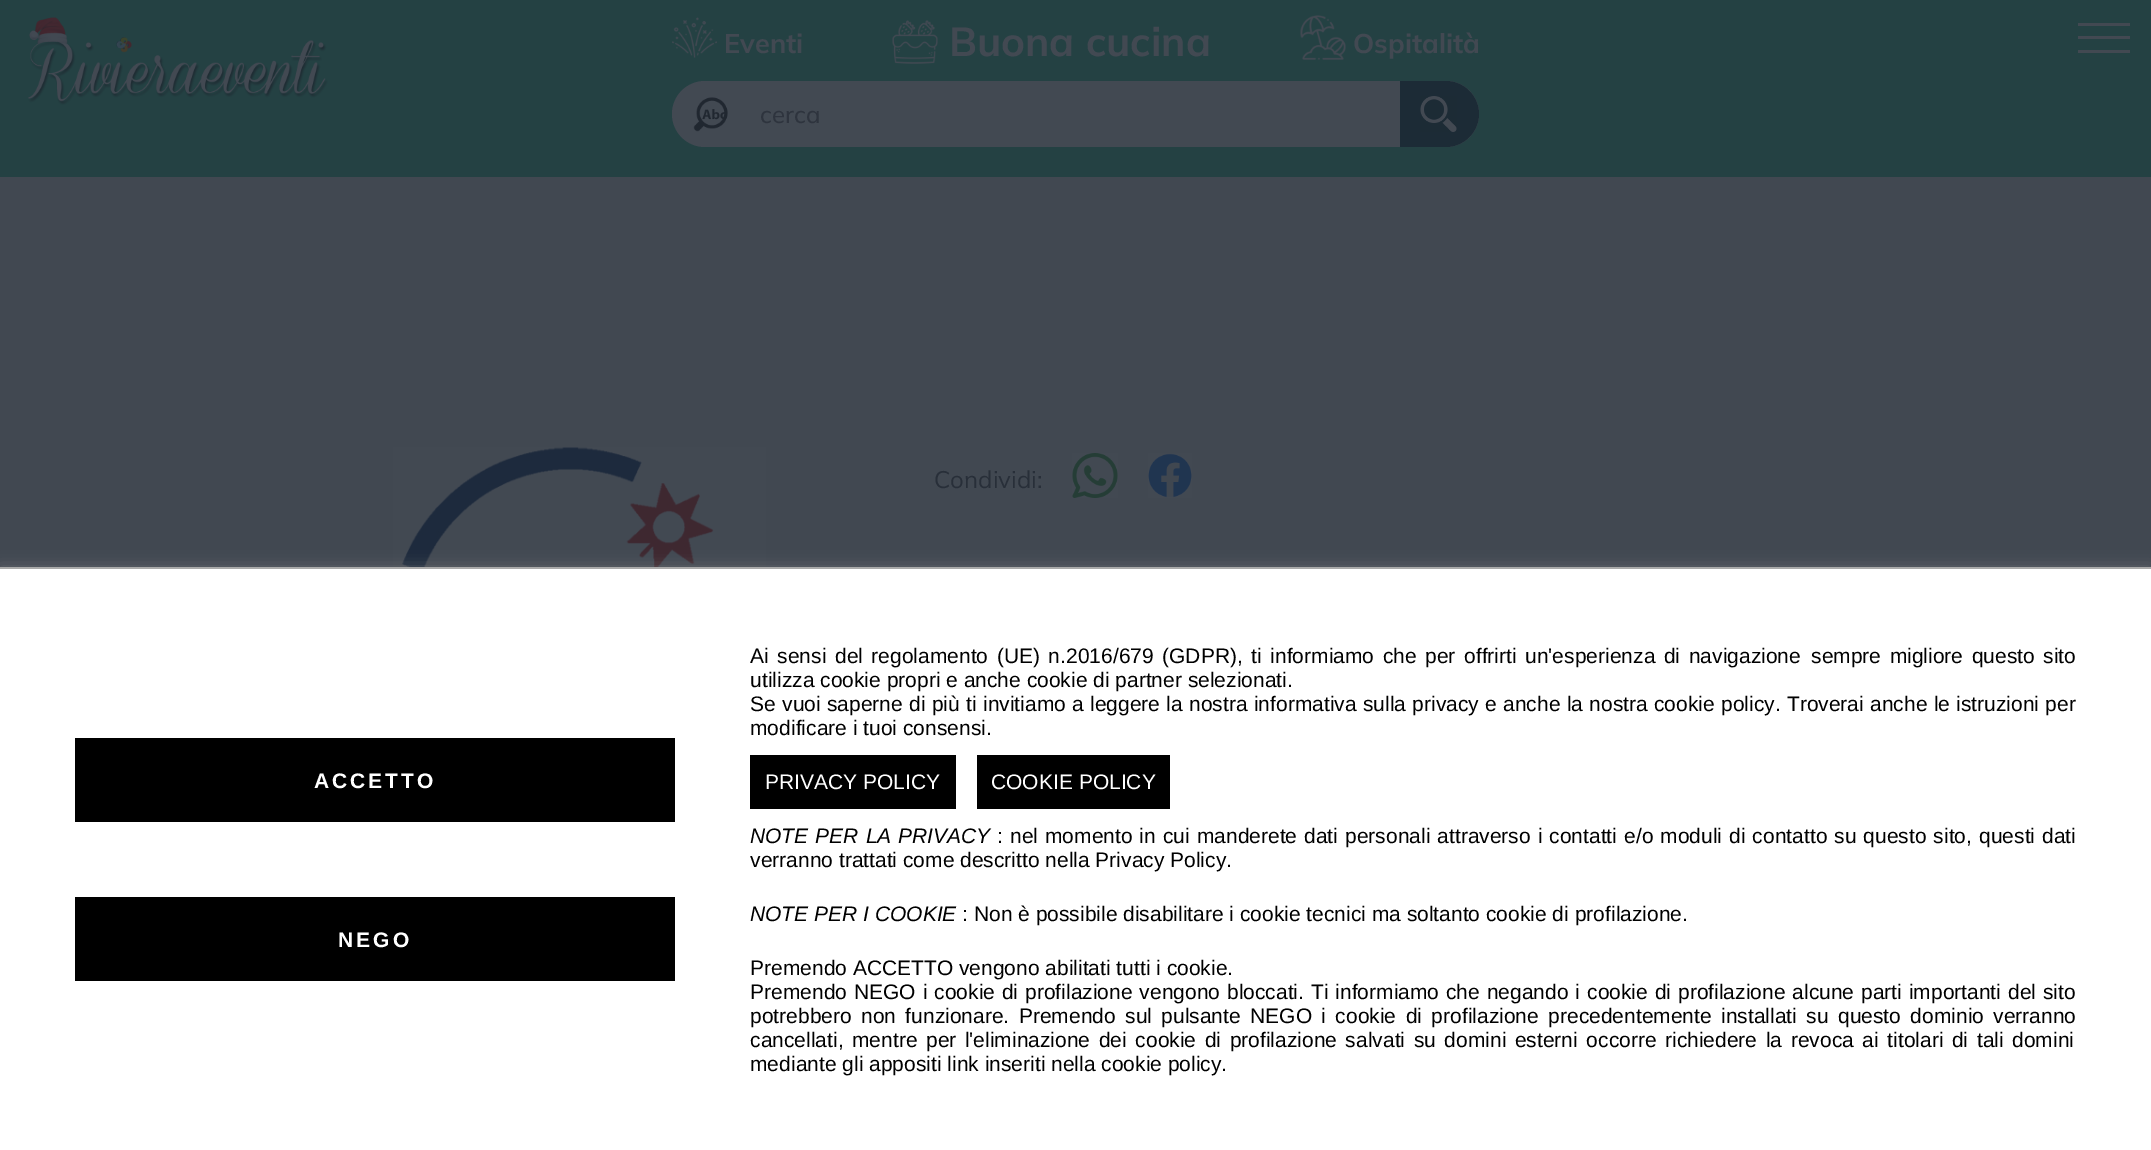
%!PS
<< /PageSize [2151 1150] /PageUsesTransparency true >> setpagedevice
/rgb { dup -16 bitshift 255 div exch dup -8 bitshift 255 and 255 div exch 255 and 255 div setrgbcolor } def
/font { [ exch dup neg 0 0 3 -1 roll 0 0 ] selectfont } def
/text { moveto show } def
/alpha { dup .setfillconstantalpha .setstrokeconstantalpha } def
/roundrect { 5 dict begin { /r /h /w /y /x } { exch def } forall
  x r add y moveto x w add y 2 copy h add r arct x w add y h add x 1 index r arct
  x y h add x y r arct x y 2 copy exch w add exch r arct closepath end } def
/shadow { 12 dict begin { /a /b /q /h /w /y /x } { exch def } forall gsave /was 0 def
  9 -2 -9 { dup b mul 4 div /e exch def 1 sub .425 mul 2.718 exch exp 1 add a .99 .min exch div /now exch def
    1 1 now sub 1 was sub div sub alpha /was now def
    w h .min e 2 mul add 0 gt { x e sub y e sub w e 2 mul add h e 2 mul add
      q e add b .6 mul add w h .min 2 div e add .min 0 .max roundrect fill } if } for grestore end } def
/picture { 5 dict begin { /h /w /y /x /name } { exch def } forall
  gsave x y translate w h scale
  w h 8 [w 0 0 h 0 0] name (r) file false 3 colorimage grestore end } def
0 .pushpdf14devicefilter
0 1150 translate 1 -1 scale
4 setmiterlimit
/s1 { /Mulish-Bold 27 font 16#424952 rgb } def
/s2 { /Mulish-Bold 40.5 font 16#424952 rgb } def
/s3 { /Mulish-Medium 24 font 16#2E343E rgb } def
/s4 { /Mulish-Regular 24 font 16#282F39 rgb } def
/s5 { /LiberationSans-Regular 21 font 16#000000 rgb } def
/s6 { /LiberationSans-Regular 21 font 16#FFFFFF rgb } def
/s7 { /LiberationSans-Italic 21 font 16#000000 rgb } def
16#414851 rgb
0 0 2151 1150 rectfill
16#244143 rgb
0 0 2151 177 rectfill
(pic1.raw) 28 17 300 88 picture
(pic2.raw) 672 17 45 41 picture
s1
(Eventi) 724 53 text
(pic3.raw) 892 20 46 44 picture
s2
(Buona cucina) 949 56 text
(pic4.raw) 1300 15 46 45 picture
s1
(Ospitalità) 1353 53 text
672 81 807 66 33 roundrect fill
(pic5.raw) 693 97 35 35 picture
s3
(cerca) 760 123 text
16#1C2B36 rgb
1400 81 moveto 1446 81 lineto 1464 81 1479 96 1479 114 curveto 1479 132 1464 147 1446 147 curveto 1400 147 lineto closepath fill
(pic6.raw) 1420 96 37 36 picture
16#424952 rgb
2078 23 52 3 rectfill
2078 36 52 3 rectfill
2078 50 52 3 rectfill
(pic7.raw) 393 447 373 120 picture
s4
(Condividi:) 934 488 text
(pic8.raw) 1072 453 46 45 picture
(pic9.raw) 1148 453 44 45 picture
16#828282 rgb
0 567 2151 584 0 7.5 0.5 shadow
16#FFFFFF rgb
0 569 2151 581 rectfill
16#AAAAAA rgb
0 567 2151 2 rectfill
16#000000 rgb
75 738 600 84 rectfill
/LiberationSans-Bold 21 font
16#FFFFFF rgb
314 788 moveto 3 0 (ACCETTO) ashow
16#000000 rgb
75 897 600 84 rectfill
16#FFFFFF rgb
338 947 moveto 3 0 (NEGO) ashow
/LiberationSans-Regular 21 font
16#000000 rgb
750 663 moveto 2.75 0 32 (Ai sensi del regolamento \(UE\) n.2016/679 \(GDPR\), ti informiamo che per offrirti un'esperienza di navigazione) widthshow
1811 663 moveto 2.75 0 32 (sempre migliore questo sito) widthshow
(utilizza cookie propri e anche cookie di partner selezionati.) 750 687 text
750 711 moveto 0.5 0 32 (Se vuoi saperne di più ti invitiamo a leggere la nostra informativa sulla privacy) widthshow
1485 711 moveto 0.5 0 32 (e anche la nostra cookie policy. Troverai anche le istruzioni per) widthshow
(modificare i tuoi consensi.) 750 735 text
750 755 206 54 rectfill
s6
(PRIVACY POLICY) 765 789 text
16#000000 rgb
977 755 193 54 rectfill
s6
(COOKIE POLICY) 991 789 text
/LiberationSans-Italic 21 font
16#000000 rgb
750 843 moveto 1.2 0 32 (NOTE PER LA PRIVACY) widthshow
/LiberationSans-Regular 21 font
997 843 moveto 1.2 0 32 (: nel momento in cui manderete dati personali attraverso i contatti e/o moduli di contatto su questo sito, questi dati) widthshow
(verranno trattati come descritto nella Privacy Policy.) 750 867 text
s7
(NOTE PER I COOKIE) 750 921 text
s5
(: Non è possibile disabilitare i cookie tecnici ma soltanto cookie di profilazione.) 962 921 text
(Premendo ACCETTO vengono abilitati tutti i cookie.) 750 975 text
750 999 moveto 1.1 0 32 (Premendo NEGO i cookie di profilazione vengono bloccati. Ti informiamo che negando i cookie di profilazione alcune parti importanti del sito) widthshow
750 1023 moveto 3.6 0 32 (potrebbero non funzionare. Premendo sul pulsante NEGO i cookie di profilazione precedentemente installati su questo dominio verranno) widthshow
750 1047 moveto 2.75 0 32 (cancellati, mentre per l'eliminazione dei cookie di profilazione salvati su domini esterni occorre richiedere la revoca ai titolari di tali domini) widthshow
(mediante gli appositi link inseriti nella cookie policy.) 750 1071 text
.poppdf14devicefilter showpage
